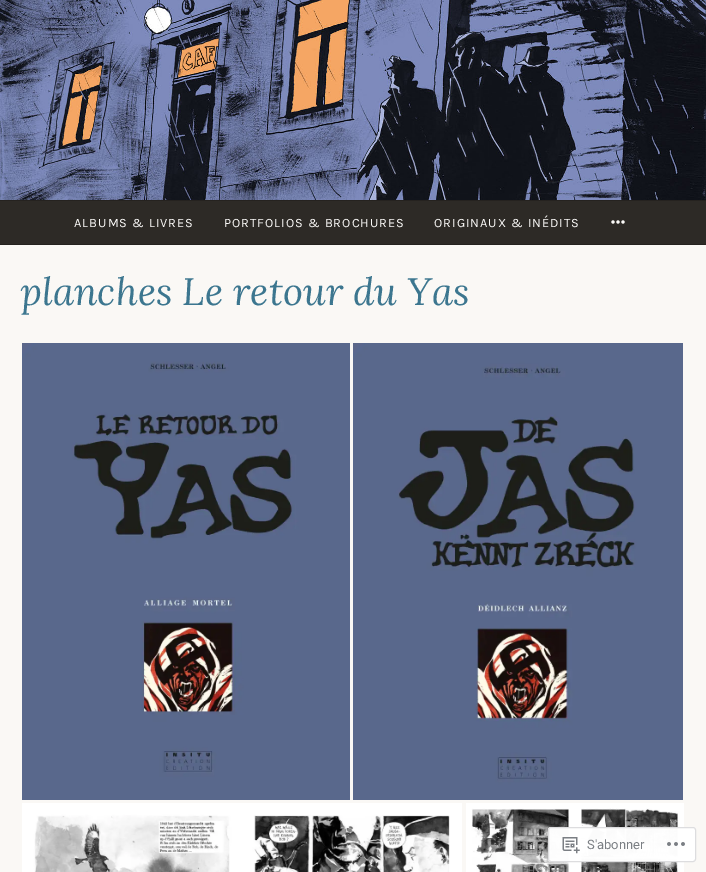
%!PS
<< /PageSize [706 872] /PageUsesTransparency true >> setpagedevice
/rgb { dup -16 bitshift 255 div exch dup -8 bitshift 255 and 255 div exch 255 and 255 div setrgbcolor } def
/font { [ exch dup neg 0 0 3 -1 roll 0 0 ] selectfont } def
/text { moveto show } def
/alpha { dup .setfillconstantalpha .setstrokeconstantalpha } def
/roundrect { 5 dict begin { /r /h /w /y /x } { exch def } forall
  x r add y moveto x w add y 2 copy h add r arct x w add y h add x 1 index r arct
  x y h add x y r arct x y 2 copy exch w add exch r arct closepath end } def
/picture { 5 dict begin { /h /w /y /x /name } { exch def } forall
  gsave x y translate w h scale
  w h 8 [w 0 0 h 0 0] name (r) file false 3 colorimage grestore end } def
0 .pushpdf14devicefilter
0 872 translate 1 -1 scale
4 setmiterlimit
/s1 { /Lora-Italic 38.4 font 16#3C768F rgb } def
/s2 { /Roboto-Regular 13 font 16#7B7F84 rgb } def
16#FAF8F5 rgb
0 0 706 872 rectfill
(pic1.raw) 0 0 706 200 picture
16#2D2A26 rgb
0 201 706 43 rectfill
16#25221F rgb
0 200 706 1 rectfill
0 244 706 1 rectfill
/Karla-Regular 12.75 font
16#FCFBF9 rgb
74 227 moveto 1 0 (ALBUMS & LIVRES) ashow
224 227 moveto 1 0 (PORTFOLIOS & BROCHURES) ashow
434 227 moveto 1 0 (ORIGINAUX & INÉDITS) ashow
(pic2.raw) 611 220 14 4 picture
s1
(planches Le retour du Yas) 20 305 text
(pic3.raw) 22 343 328 457 picture
(pic4.raw) 353 343 330 457 picture
(pic5.raw) 22 803 440 69 picture
(pic6.raw) 466 803 218 69 picture
0.98 alpha
16#FFFFFF rgb
548 827 148 35 3 roundrect fill
16#DCDCDE rgb
548.5 827.5 147 34 2.5 roundrect stroke
1 alpha
(pic7.raw) 562 837 18 17 picture
s2
(S'abonner) 587 849 text
(pic8.raw) 667 842 18 4 picture
.poppdf14devicefilter showpage
